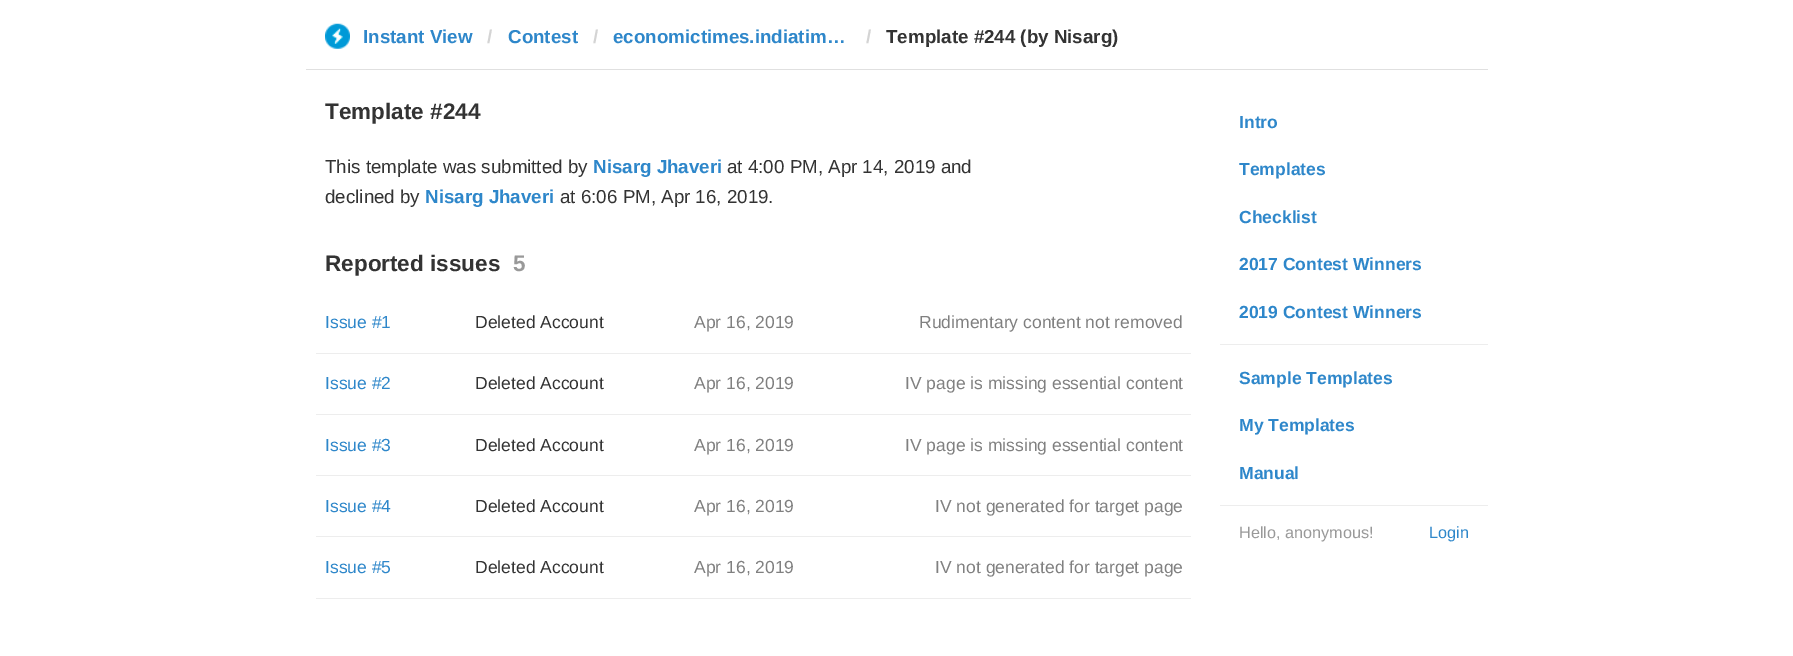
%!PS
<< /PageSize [1793 656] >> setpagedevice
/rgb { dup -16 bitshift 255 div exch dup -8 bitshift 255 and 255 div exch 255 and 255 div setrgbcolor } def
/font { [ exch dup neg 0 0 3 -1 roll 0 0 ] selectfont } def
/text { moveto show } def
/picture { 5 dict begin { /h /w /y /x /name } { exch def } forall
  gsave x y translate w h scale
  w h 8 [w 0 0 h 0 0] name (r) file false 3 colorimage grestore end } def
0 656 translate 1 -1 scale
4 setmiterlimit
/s1 { /LiberationSans-Bold 18.75 font 16#2E87CA rgb } def
/s2 { /LiberationSans-Bold 18.75 font 16#D4D4D4 rgb } def
/s3 { /LiberationSans-Bold 18.75 font 16#333333 rgb } def
/s4 { /LiberationSans-Bold 22.5 font 16#333333 rgb } def
/s5 { /LiberationSans-Regular 18.75 font 16#333333 rgb } def
/s6 { /LiberationSans-Bold 22.5 font 16#999999 rgb } def
/s7 { /LiberationSans-Regular 17.5 font 16#2E87CA rgb } def
/s8 { /LiberationSans-Regular 17.5 font 16#333333 rgb } def
/s9 { /LiberationSans-Regular 17.5 font 16#808080 rgb } def
/s10 { /LiberationSans-Bold 17.5 font 16#2E87CA rgb } def
/s11 { /LiberationSans-Regular 16.25 font 16#999999 rgb } def
/s12 { /LiberationSans-Regular 16.25 font 16#2E87CA rgb } def
16#FFFFFF rgb
0 0 1793 656 rectfill
16#E0E0E0 rgb
306 69 1182 1 rectfill
(pic1.raw) 325 23 25 26 picture
s1
(Instant View) 363 43 text
s2
(/) 487 43 text
s1
(Contest) 508 43 text
s2
(/) 593 43 text
s1
(economictimes.indiatim…) 613 43 text
s2
(/) 866 43 text
s3
(Template #244 \(by Nisarg\)) 886 43 text
s4
(Template #244) 325 119 text
s5
(This template was submitted by) 325 173 text
s1
(Nisarg Jhaveri) 593 173 text
s5
(at 4:00 PM, Apr 14, 2019 and) 727 173 text
(declined by) 325 203 text
s1
(Nisarg Jhaveri) 425 203 text
s5
(at 6:06 PM, Apr 16, 2019.) 560 203 text
s4
(Reported issues) 325 271 text
s6
(5) 513 271 text
16#EDEDED rgb
316 353 875 1 rectfill
s7
(Issue #1) 325 328 text
s8
(Deleted Account) 475 328 text
s9
(Apr 16, 2019) 694 328 text
(Rudimentary content not removed) 919 328 text
16#EDEDED rgb
316 414 875 1 rectfill
s7
(Issue #2) 325 389 text
s8
(Deleted Account) 475 389 text
s9
(Apr 16, 2019) 694 389 text
(IV page is missing essential content) 905 389 text
16#EDEDED rgb
316 475 875 1 rectfill
s7
(Issue #3) 325 451 text
s8
(Deleted Account) 475 451 text
s9
(Apr 16, 2019) 694 451 text
(IV page is missing essential content) 905 451 text
16#EDEDED rgb
316 536 875 1 rectfill
s7
(Issue #4) 325 512 text
s8
(Deleted Account) 475 512 text
s9
(Apr 16, 2019) 694 512 text
(IV not generated for target page) 935 512 text
16#EDEDED rgb
316 598 875 1 rectfill
s7
(Issue #5) 325 573 text
s8
(Deleted Account) 475 573 text
s9
(Apr 16, 2019) 694 573 text
(IV not generated for target page) 935 573 text
s10
(Intro) 1239 128 text
(Templates) 1239 175 text
(Checklist) 1239 223 text
(2017 Contest Winners) 1239 270 text
(2019 Contest Winners) 1239 318 text
16#EDEDED rgb
1220 344 268 1 rectfill
s10
(Sample Templates) 1239 384 text
(My Templates) 1239 431 text
(Manual) 1239 479 text
16#EDEDED rgb
1220 505 268 1 rectfill
s11
(Hello, anonymous!) 1239 538 text
s12
(Login) 1429 538 text
showpage
